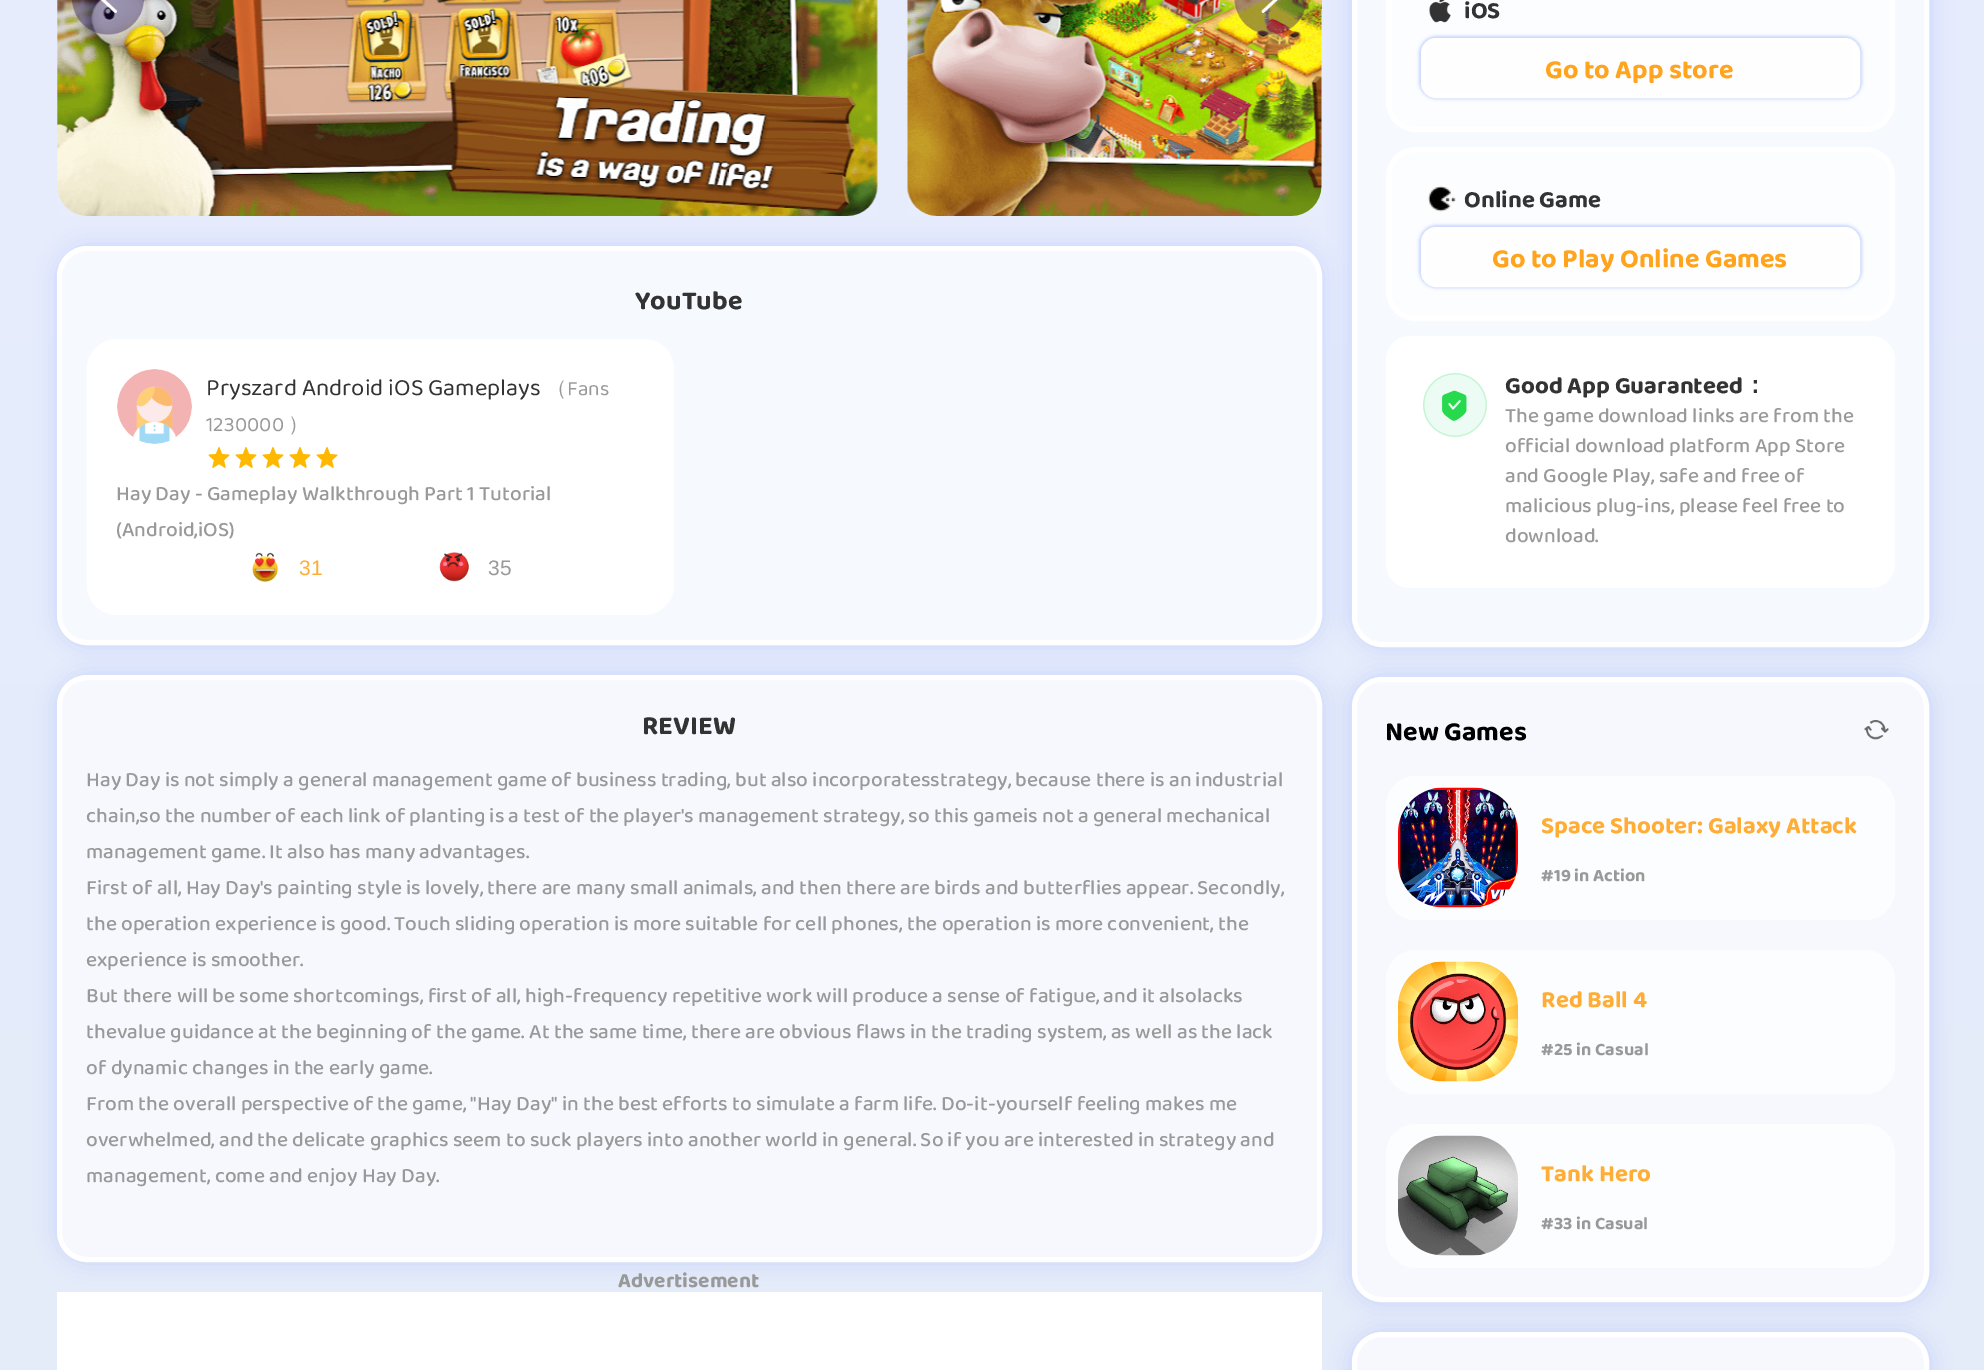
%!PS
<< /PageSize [1984 1370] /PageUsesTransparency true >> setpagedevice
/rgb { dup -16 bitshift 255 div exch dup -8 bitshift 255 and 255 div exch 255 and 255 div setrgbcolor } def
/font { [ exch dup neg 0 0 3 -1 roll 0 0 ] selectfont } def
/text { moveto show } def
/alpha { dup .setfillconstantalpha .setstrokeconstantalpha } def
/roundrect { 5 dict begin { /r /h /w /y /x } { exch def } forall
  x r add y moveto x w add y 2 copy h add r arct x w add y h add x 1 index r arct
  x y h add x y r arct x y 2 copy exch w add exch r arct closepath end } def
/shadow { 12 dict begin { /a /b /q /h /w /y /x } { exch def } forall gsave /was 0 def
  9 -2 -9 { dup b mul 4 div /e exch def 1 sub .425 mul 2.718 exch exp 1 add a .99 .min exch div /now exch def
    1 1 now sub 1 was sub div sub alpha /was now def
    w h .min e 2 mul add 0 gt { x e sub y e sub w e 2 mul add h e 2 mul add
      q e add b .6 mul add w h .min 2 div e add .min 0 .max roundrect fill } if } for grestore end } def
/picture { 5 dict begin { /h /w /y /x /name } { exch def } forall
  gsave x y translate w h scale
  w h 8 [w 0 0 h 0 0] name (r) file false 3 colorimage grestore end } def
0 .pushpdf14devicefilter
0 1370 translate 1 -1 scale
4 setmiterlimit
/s1 { /BalooBhai2-Bold 27 font 16#333333 rgb } def
/s2 { /BalooBhai2-Regular 24 font 16#333333 rgb } def
/s3 { /WenQuanYiZenHei-Medium 21 font 16#999999 rgb } def
/s4 { /BalooBhai2-Regular 21 font 16#999999 rgb } def
/s5 { /BalooBhai2-Medium 21 font 16#999999 rgb } def
/s6 { /LiberationSans-Regular 21 font 16#FFAD35 rgb } def
/s7 { /LiberationSans-Regular 21 font 16#999999 rgb } def
/s8 { /BalooBhai2-Bold 21 font 16#999999 rgb } def
/s9 { /BalooBhai2-Bold 24 font 16#333333 rgb } def
/s10 { /BalooBhai2-Bold 27 font 16#FFA41C rgb } def
/s11 { /WenQuanYiZenHei-Bold 24 font 16#333333 rgb } def
/s12 { /BalooBhai2-Bold 27 font 16#000000 rgb } def
/s13 { /BalooBhai2-Bold 24 font 16#FFAD35 rgb } def
/s14 { /BalooBhai2-Bold 18 font 16#999999 rgb } def
16#FFFFFF rgb
0 0 1984 1370 rectfill
gsave 0 0 moveto 1984 0 lineto 1984 1370 lineto 0 1370 lineto closepath clip newpath
<< /ShadingType 2 /ColorSpace /DeviceRGB /Coords [992 -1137 992 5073] /Extend [true true] /Function << /FunctionType 2 /Domain [0 1] /C0 [0.918 0.937 1] /C1 [0.855 0.894 0.945] /N 1 >> >> shfill grestore
gsave
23 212 moveto 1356 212 lineto 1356 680 lineto 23 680 lineto closepath 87 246 moveto 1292 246 lineto 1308.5 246 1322 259.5 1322 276 curveto 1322 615 lineto 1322 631.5 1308.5 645 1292 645 curveto 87 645 lineto 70.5 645 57 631.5 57 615 curveto 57 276 lineto 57 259.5 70.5 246 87 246 curveto closepath eoclip newpath
16#CAD6FB rgb
56 245 1267 402 32 10.5 1 shadow
grestore
(pic1.raw) 57 0 821 216 picture
0.66 alpha
59.5 248.5 1260 394 27.5 roundrect fill
1 alpha
5 setlinewidth
59.5 248.5 1260 394 27.5 roundrect stroke
gsave
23 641 moveto 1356 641 lineto 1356 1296 lineto 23 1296 lineto closepath 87 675 moveto 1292 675 lineto 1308.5 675 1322 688.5 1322 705 curveto 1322 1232 lineto 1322 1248.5 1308.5 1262 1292 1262 curveto 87 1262 lineto 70.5 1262 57 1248.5 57 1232 curveto 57 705 lineto 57 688.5 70.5 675 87 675 curveto closepath eoclip newpath
16#CAD6FB rgb
56 674 1267 589 32 10.5 1 shadow
grestore
0.66 alpha
59.5 677.5 1260 582 27.5 roundrect fill
1 alpha
59.5 677.5 1260 582 27.5 roundrect stroke
gsave
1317 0 moveto 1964 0 lineto 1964 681 lineto 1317 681 lineto closepath 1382 -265 moveto 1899 -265 lineto 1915.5 -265 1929 -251.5 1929 -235 curveto 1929 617 lineto 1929 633.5 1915.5 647 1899 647 curveto 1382 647 lineto 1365.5 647 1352 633.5 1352 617 curveto 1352 -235 lineto 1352 -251.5 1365.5 -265 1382 -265 curveto closepath eoclip newpath
16#CAD6FB rgb
1350 -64 581 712 32 10.5 1 shadow
grestore
(pic2.raw) 907 0 415 216 picture
(pic3.raw) 72 0 72 35 picture
(pic4.raw) 1234 0 73 35 picture
s1
(YouTube) 635 309 text
16#FFFFFF rgb
87 339 587 276 30 roundrect fill
(pic5.raw) 117 369 75 75 picture
s2
(Pryszard Android iOS Gameplays) 206 395 text
s3
(（) 546 395 text
s4
(Fans) 567 395 text
(1230000) 206 431 text
s3
(）) 288 431 text
(pic6.raw) 208 447 22 21 picture
(pic6.raw) 235 447 22 21 picture
(pic6.raw) 262 447 22 21 picture
(pic6.raw) 289 447 22 21 picture
(pic6.raw) 316 447 22 21 picture
s5
(Hay Day - Gameplay Walkthrough Part 1 Tutorial) 116 500 text
(\(Android,iOS\)) 116 536 text
(pic7.raw) 252 552 27 30 picture
s6
(31) 299 575 text
(pic8.raw) 439 552 30 30 picture
s7
(35) 488 575 text
s1
(REVIEW) 642 734 text
s5
(Hay Day is not simply a general management game of business trading, but also incorporatesstrategy, because there is an industrial) 86 786 text
(chain,so the number of each link of planting is a test of the player's management strategy, so this gameis not a general mechanical) 86 822 text
(management game. It also has many advantages.) 86 858 text
(First of all, Hay Day's painting style is lovely, there are many small animals, and then there are birds and butterflies appear. Secondly,) 86 894 text
(the operation experience is good. Touch sliding operation is more suitable for cell phones, the operation is more convenient, the) 86 930 text
(experience is smoother.) 86 966 text
(But there will be some shortcomings, first of all, high-frequency repetitive work will produce a sense of fatigue, and it alsolacks) 86 1002 text
(thevalue guidance at the beginning of the game. At the same time, there are obvious flaws in the trading system, as well as the lack) 86 1038 text
(of dynamic changes in the early game.) 86 1074 text
(From the overall perspective of the game, "Hay Day" in the best efforts to simulate a farm life. Do-it-yourself feeling makes me) 86 1110 text
(overwhelmed, and the delicate graphics seem to suck players into another world in general. So if you are interested in strategy and) 86 1146 text
(management, come and enjoy Hay Day.) 86 1182 text
0.66 alpha
16#FFFFFF rgb
1354.5 -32.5 572 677 27.5 roundrect fill
1 alpha
1354.5 -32.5 572 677 27.5 roundrect stroke
gsave
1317 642 moveto 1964 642 lineto 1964 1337 lineto 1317 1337 lineto closepath 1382 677 moveto 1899 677 lineto 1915.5 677 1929 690.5 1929 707 curveto 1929 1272 lineto 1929 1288.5 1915.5 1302 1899 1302 curveto 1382 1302 lineto 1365.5 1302 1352 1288.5 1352 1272 curveto 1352 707 lineto 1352 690.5 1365.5 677 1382 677 curveto closepath eoclip newpath
16#CAD6FB rgb
1350 675 581 629 32 10.5 1 shadow
grestore
0.66 alpha
1354.5 679.5 572 620 27.5 roundrect fill
1 alpha
1354.5 679.5 572 620 27.5 roundrect stroke
gsave
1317 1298 moveto 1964 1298 lineto 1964 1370 lineto 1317 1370 lineto closepath 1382 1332 moveto 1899 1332 lineto 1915.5 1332 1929 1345.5 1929 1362 curveto 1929 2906 lineto 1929 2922.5 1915.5 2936 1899 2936 curveto 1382 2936 lineto 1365.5 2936 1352 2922.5 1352 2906 curveto 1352 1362 lineto 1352 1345.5 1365.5 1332 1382 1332 curveto closepath eoclip newpath
16#CAD6FB rgb
1350 1331 581 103 32 10.5 1 shadow
grestore
57 1292 1265 78 rectfill
s8
(Advertisement) 618 1287 text
16#FCFDFF rgb
1388.5 -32.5 504 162 27.5 roundrect gsave fill grestore
16#FFFFFF rgb
stroke
(pic9.raw) 1429 0 22 23 picture
s9
(iOS) 1464 18 text
gsave
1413 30 moveto 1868 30 lineto 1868 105 lineto 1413 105 lineto closepath 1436 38 moveto 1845 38 lineto 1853.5 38 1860 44.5 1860 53 curveto 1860 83 lineto 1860 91.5 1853.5 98 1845 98 curveto 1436 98 lineto 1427.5 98 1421 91.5 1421 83 curveto 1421 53 lineto 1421 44.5 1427.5 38 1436 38 curveto closepath eoclip newpath
16#CAD6FB rgb
1419 36 443 63 17 1.5 1 shadow
grestore
0.66 alpha
16#FFFFFF rgb
1423.5 40.5 434 55 12.5 roundrect fill
1 alpha
1423.5 40.5 434 55 12.5 roundrect stroke
s10
(Go to App store) 1545 78 text
16#FCFDFF rgb
1388.5 149.5 504 169 27.5 roundrect gsave fill grestore
16#FFFFFF rgb
stroke
(pic10.raw) 1427 185 29 27 picture
s9
(Online Game) 1464 207 text
gsave
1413 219 moveto 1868 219 lineto 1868 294 lineto 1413 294 lineto closepath 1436 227 moveto 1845 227 lineto 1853.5 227 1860 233.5 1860 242 curveto 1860 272 lineto 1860 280.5 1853.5 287 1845 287 curveto 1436 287 lineto 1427.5 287 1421 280.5 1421 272 curveto 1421 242 lineto 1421 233.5 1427.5 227 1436 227 curveto closepath eoclip newpath
16#CAD6FB rgb
1419 225 443 63 17 1.5 1 shadow
grestore
0.66 alpha
16#FFFFFF rgb
1423.5 229.5 434 55 12.5 roundrect fill
1 alpha
1423.5 229.5 434 55 12.5 roundrect stroke
s10
(Go to Play Online Games) 1492 267 text
16#FFFFFF rgb
1386 336 509 252 24 roundrect fill
(pic11.raw) 1423 373 64 64 picture
s9
(Good App Guaranteed) 1505 393 text
s11
(：) 1743 393 text
s5
(The game download links are from the) 1505 422 text
(official download platform App Store) 1505 452 text
(and Google Play, safe and free of) 1505 482 text
(malicious plug-ins, please feel free to) 1505 512 text
(download.) 1505 542 text
s12
(New Games) 1385 740 text
(pic12.raw) 1864 720 25 20 picture
16#FCFDFE rgb
1386 776 509 144 30 roundrect fill
(pic13.raw) 1398 787 120 121 picture
s13
(Space Shooter: Galaxy Attack) 1541 833 text
s14
(#19 in Action) 1541 881 text
16#FCFDFE rgb
1386 950 509 144 30 roundrect fill
(pic14.raw) 1398 961 120 121 picture
s13
(Red Ball 4) 1541 1007 text
s14
(#25 in Casual) 1541 1055 text
16#FCFDFE rgb
1386 1124 509 144 30 roundrect fill
(pic15.raw) 1398 1135 120 121 picture
s13
(Tank Hero) 1541 1181 text
s14
(#33 in Casual) 1541 1229 text
0.66 alpha
16#FFFFFF rgb
1354.5 1334.5 572 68 27.5 roundrect fill
1 alpha
1354.5 1334.5 572 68 27.5 roundrect stroke
.poppdf14devicefilter showpage
